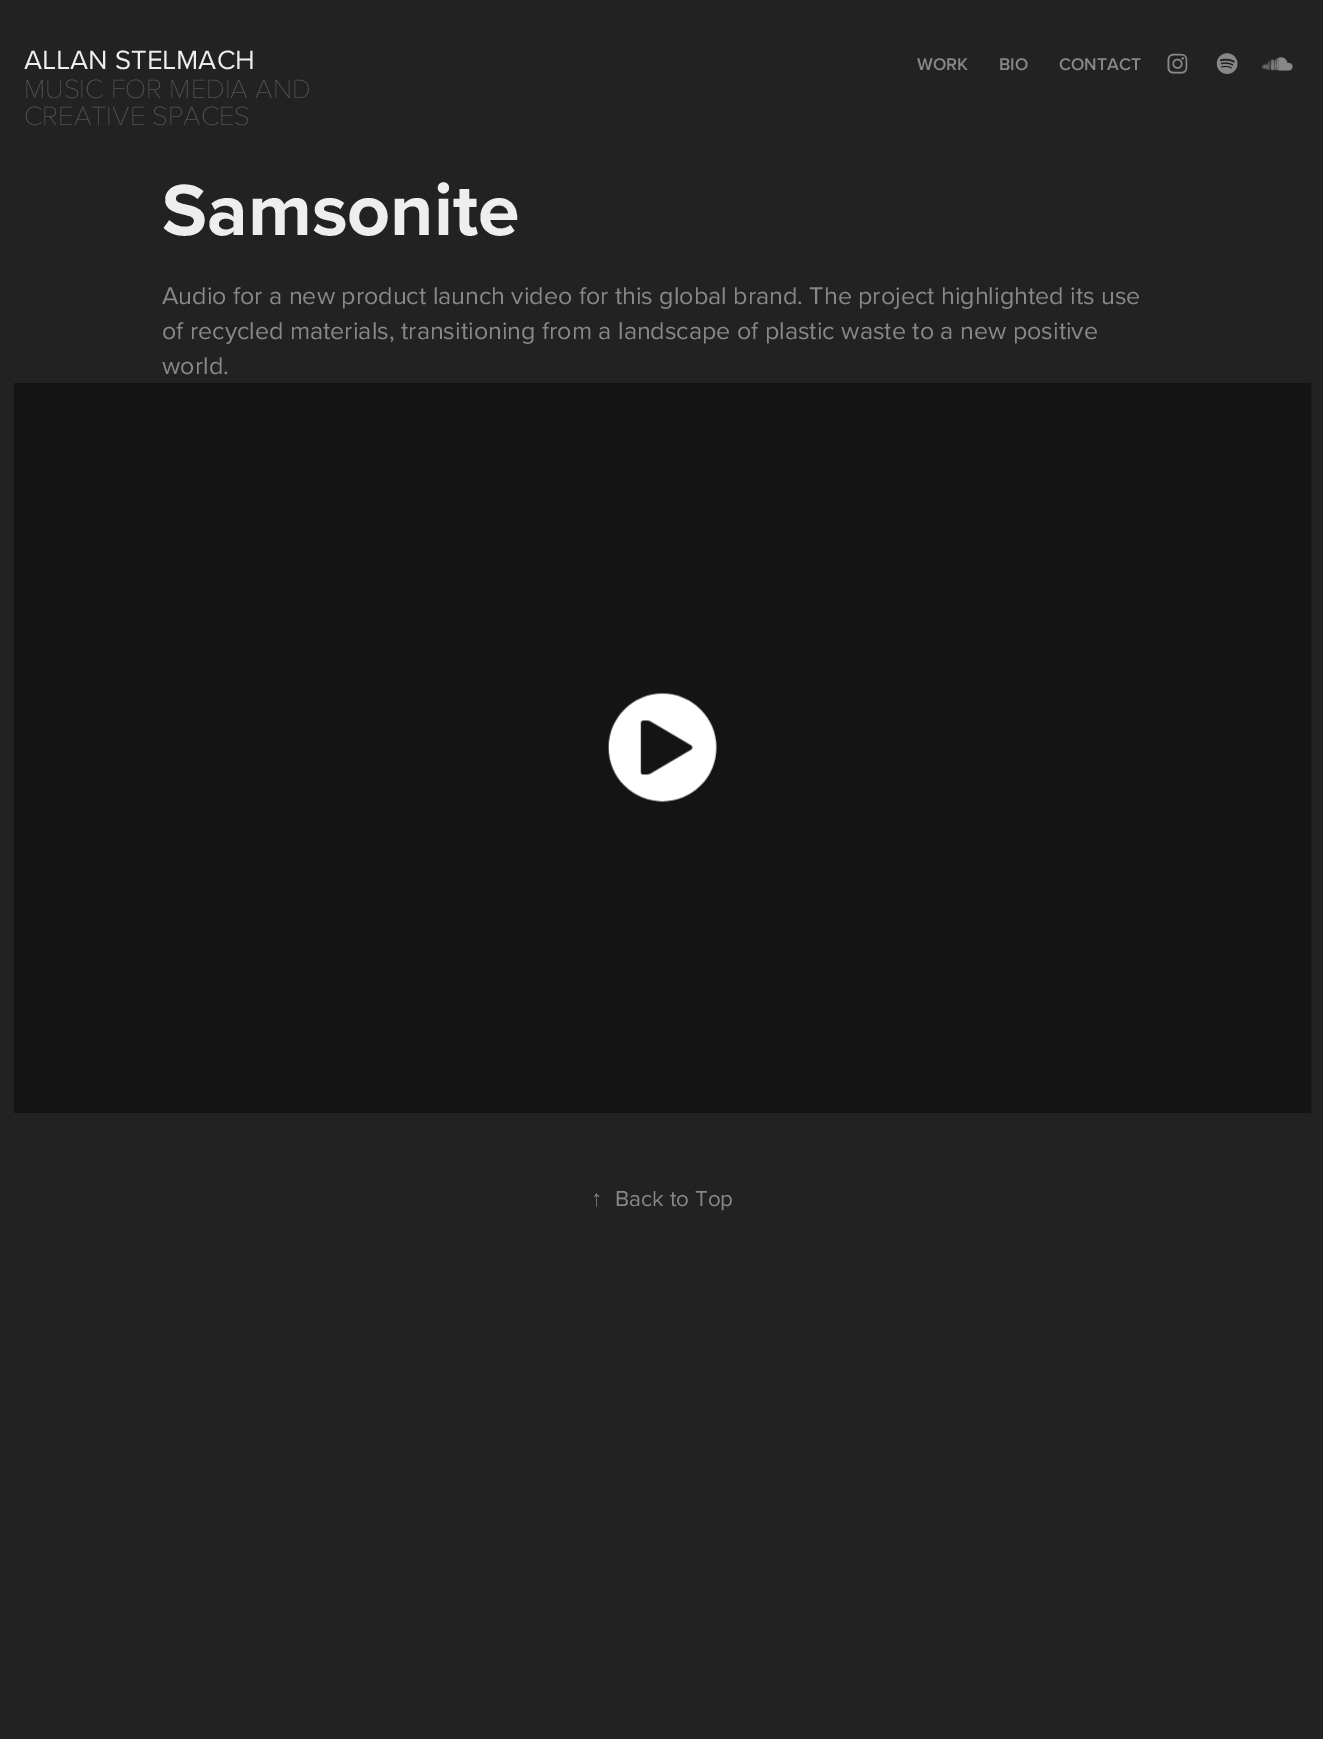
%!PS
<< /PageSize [1323 1739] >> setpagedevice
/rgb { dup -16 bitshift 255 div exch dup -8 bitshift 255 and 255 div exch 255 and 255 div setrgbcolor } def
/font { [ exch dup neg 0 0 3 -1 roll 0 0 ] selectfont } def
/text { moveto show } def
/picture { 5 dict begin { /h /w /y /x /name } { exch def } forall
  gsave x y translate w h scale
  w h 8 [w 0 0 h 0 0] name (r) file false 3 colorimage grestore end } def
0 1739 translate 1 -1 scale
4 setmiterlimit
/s1 { /ProximaNova-Regular 27.5 font 16#EEEEEE rgb } def
/s2 { /ProximaNova-Thin 27.5 font 16#555555 rgb } def
/s3 { /ProximaNova-SemiBold 17.5 font 16#888888 rgb } def
/s4 { /ProximaNova-Bold 75 font 16#EEEEEE rgb } def
/s5 { /ProximaNova-Regular 25 font 16#888888 rgb } def
/s6 { /LiberationSerif-Regular 22.5 font 16#888888 rgb } def
/s7 { /ProximaNova-Regular 22.5 font 16#888888 rgb } def
16#222222 rgb
0 0 1323 1739 rectfill
s1
(ALLAN STELMACH) 24 69 text
s2
(MUSIC FOR MEDIA AND) 24 98 text
(CREATIVE SPACES) 24 125 text
s3
(WORK) 917 70 text
(BIO) 999 70 text
(CONTACT) 1059 70 text
(pic1.raw) 1167 53 21 21 picture
(pic2.raw) 1216 53 22 21 picture
(pic3.raw) 1262 57 31 14 picture
s4
(Samsonite) 162 235 text
s5
(Audio for a new product launch video for this global brand. The project highlighted its use) 162 304 text
(of recycled materials, transitioning from a landscape of plastic waste to a new positive) 162 339 text
(world.) 162 374 text
(pic4.raw) 14 383 1298 730 picture
s6
(↑) 591 1206 text
s7
(Back to Top) 615 1206 text
showpage
